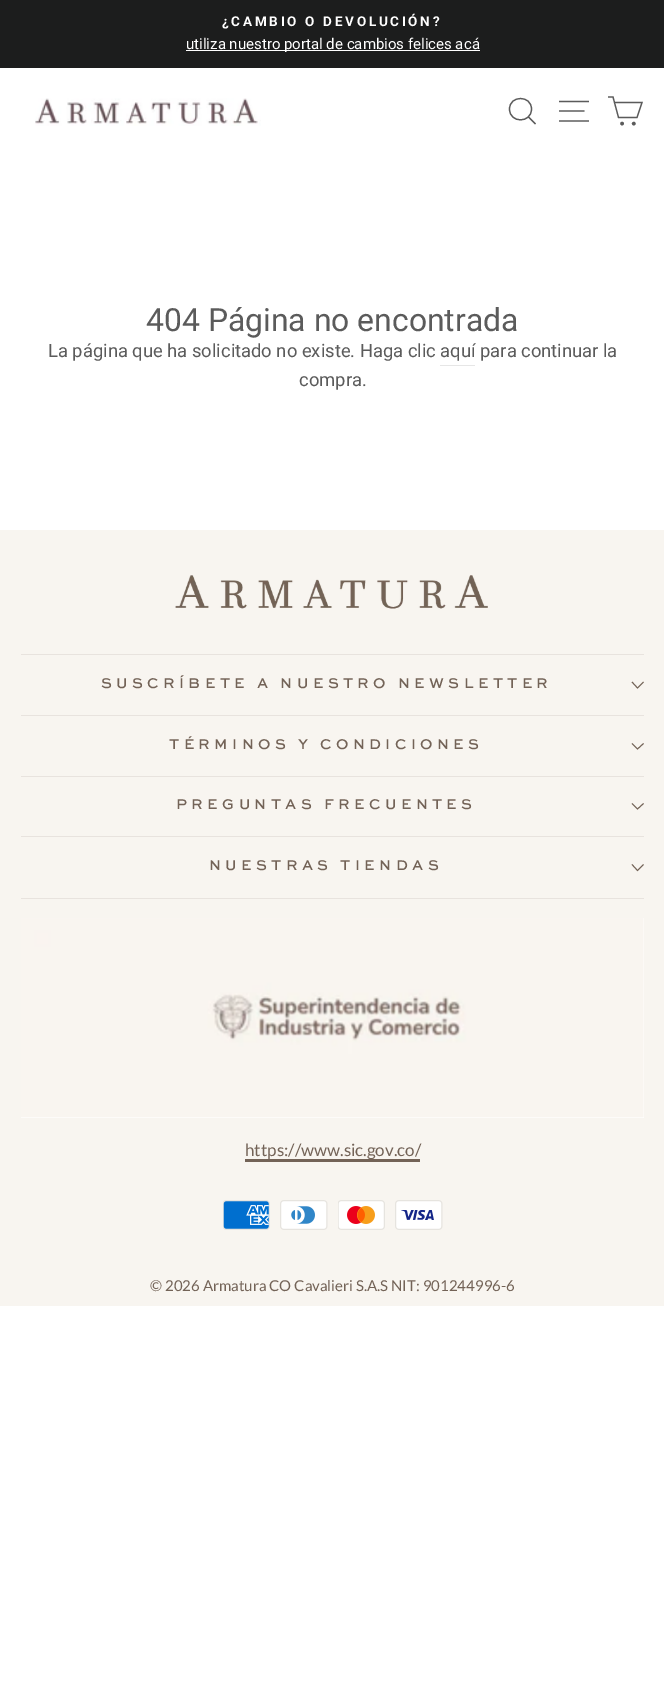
%!PS
<< /PageSize [664 1705] >> setpagedevice
/rgb { dup -16 bitshift 255 div exch dup -8 bitshift 255 and 255 div exch 255 and 255 div setrgbcolor } def
/font { [ exch dup neg 0 0 3 -1 roll 0 0 ] selectfont } def
/text { moveto show } def
/circle { newpath 0 360 arc closepath } def
/picture { 5 dict begin { /h /w /y /x /name } { exch def } forall
  gsave x y translate w h scale
  w h 8 [w 0 0 h 0 0] name (r) file false 3 colorimage grestore end } def
0 1705 translate 1 -1 scale
4 setmiterlimit
/s1 { /Roboto-Regular 15 font 16#FFFFFF rgb } def
/s2 { /Roboto-Regular 31.9 font 16#5B5B5B rgb } def
/s3 { /Roboto-Regular 18.4 font 16#5B5B5B rgb } def
/s4 { /Lato-Regular 17 font 16#736357 rgb } def
/s5 { /Lato-Regular 15 font 16#736357 rgb } def
16#FFFFFF rgb
0 0 664 1705 rectfill
16#1C1D1D rgb
0 0 664 68 rectfill
/Roboto-Bold 13.5 font
16#FFFFFF rgb
222 26 moveto 2.7 0 (¿CAMBIO O DEVOLUCIÓN?) ashow
186 50 294 1 rectfill
s1
(utiliza nuestro portal de cambios felices acá) 186 49 text
(pic1.raw) 35 98 226 28 picture
16#5B5B5B rgb
1.2 setlinewidth
531.5 109 moveto 531.5 123.5 509.5 123.5 509.5 109 curveto 509.5 95 531.5 95 531.5 109 curveto closepath 535.5 124 moveto 528.5 117 lineto stroke
559 101.5 moveto 589 101.5 lineto 559 111 moveto 584.5 111 lineto 559 121 moveto 589 121 lineto stroke
614.5 102.5 moveto 642 102.5 lineto 637 117.5 lineto 618.5 117.5 lineto 613 97 lineto 608 97 lineto stroke
622.1 123.6 1.2 circle gsave fill grestore
stroke
633.8 123.6 1.2 circle gsave fill grestore
stroke
s2
(404 Página no encontrada) 146 331 text
s3
(La página que ha solicitado no existe. Haga clic aquí) 48 357 text
(para continuar la) 480 357 text
16#E6E6E6 rgb
440 365 35 1 rectfill
s3
(compra.) 299 386 text
16#F8F5F0 rgb
0 530 664 776 rectfill
(pic2.raw) 175 575 313 34 picture
16#E8E3DE rgb
21 654 623 1 rectfill
/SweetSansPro-Medium 14.75 font
16#736357 rgb
101 688 moveto 4.4 0 (SUSCRÍBETE A NUESTRO NEWSLETTER) ashow
0.9 setlinewidth
632 682 moveto 637.5 688 lineto 643.5 682 lineto stroke
16#E8E3DE rgb
21 715 623 1 rectfill
16#736357 rgb
169 749 moveto 4.4 0 (TÉRMINOS Y CONDICIONES) ashow
632 743.5 moveto 637.5 749 lineto 643.5 743.5 lineto stroke
16#E8E3DE rgb
21 776 623 1 rectfill
16#736357 rgb
176 809 moveto 4.4 0 (PREGUNTAS FRECUENTES) ashow
632 803.5 moveto 637.5 809 lineto 643.5 803.5 lineto stroke
16#E8E3DE rgb
21 836 623 1 rectfill
16#736357 rgb
209 870 moveto 4.4 0 (NUESTRAS TIENDAS) ashow
632 864.5 moveto 637.5 870.5 lineto 643.5 864.5 lineto stroke
16#E8E3DE rgb
21 898 623 1 rectfill
16#FFFFFF rgb
21 918 623 200 rectfill
(pic3.raw) 21 918 623 200 picture
16#736357 rgb
245 1159 175 3 rectfill
s4
(https://www.sic.gov.co/) 245 1156 text
(pic4.raw) 223 1200 47 30 picture
(pic5.raw) 280 1200 48 30 picture
(pic6.raw) 338 1200 47 30 picture
(pic7.raw) 395 1200 48 30 picture
s5
(© 2026 Armatura CO Cavalieri S.A.S NIT: 901244996-6) 150 1291 text
showpage
